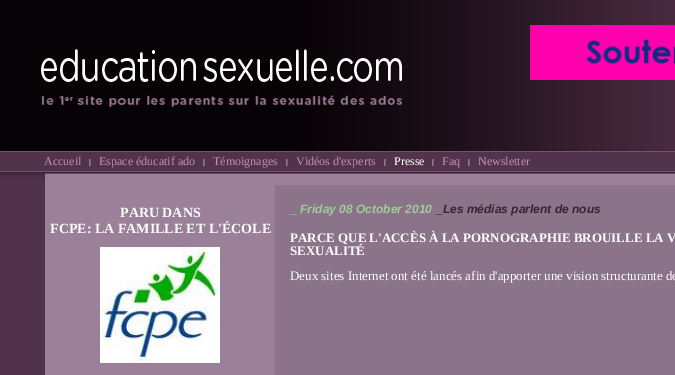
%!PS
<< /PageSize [675 375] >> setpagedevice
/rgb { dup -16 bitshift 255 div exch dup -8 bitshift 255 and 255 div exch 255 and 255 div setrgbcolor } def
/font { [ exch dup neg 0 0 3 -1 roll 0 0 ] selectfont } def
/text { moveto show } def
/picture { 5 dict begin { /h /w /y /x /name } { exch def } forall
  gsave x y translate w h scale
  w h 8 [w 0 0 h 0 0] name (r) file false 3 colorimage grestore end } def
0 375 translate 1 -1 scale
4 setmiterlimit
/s1 { /LiberationSerif-Regular 12 font 16#C28FB2 rgb } def
/s2 { /LiberationSerif-Regular 12 font 16#FFFFFF rgb } def
/s3 { /LiberationSerif-Bold 14 font 16#FFFFFF rgb } def
/s4 { /LiberationSans-BoldItalic 12 font 16#A0CD9A rgb } def
/s5 { /LiberationSans-BoldItalic 12 font 16#382131 rgb } def
/s6 { /LiberationSerif-Bold 13 font 16#FFFFFF rgb } def
/s7 { /LiberationSerif-Regular 13 font 16#FFFFFF rgb } def
16#FFFFFF rgb
0 0 675 375 rectfill
(pic1.raw) 0 151 675 22 picture
(pic2.raw) 0 0 675 151 picture
(pic3.raw) 41 49 361 58 picture
(pic4.raw) 530 25 145 55 picture
s1
(Accueil) 44 165 text
(pic5.raw) 89 159 2 7 picture
(Espace éducatif ado) 99 165 text
(pic5.raw) 203 159 2 7 picture
(Témoignages) 213 165 text
(pic5.raw) 286 159 2 7 picture
(Vidéos d'experts) 296 165 text
(pic5.raw) 384 159 2 7 picture
s2
(Presse) 394 165 text
(pic5.raw) 432 159 2 7 picture
s1
(Faq) 442 165 text
(pic5.raw) 468 159 2 7 picture
(Newsletter) 478 165 text
(pic6.raw) 0 173 45 202 picture
(pic7.raw) 45 173 630 1 picture
16#9A8099 rgb
45 174 630 201 rectfill
s3
(PARU DANS) 120 217 text
(FCPE: LA FAMILLE ET L'ÉCOLE) 50 233 text
(pic8.raw) 100 247 120 116 picture
16#8B7489 rgb
275 185 400 190 rectfill
s4
(_ Friday 08 October 2010) 290 213 text
s5
(_Les médias parlent de nous) 436 213 text
s6
(PARCE QUE L'ACCÈS À LA PORNOGRAPHIE BROUILLE LA V) 290 242 text
(SEXUALITÉ) 290 255 text
s7
(Deux sites Internet ont été lancés afin d'apporter une vision structurante de) 290 280 text
showpage
